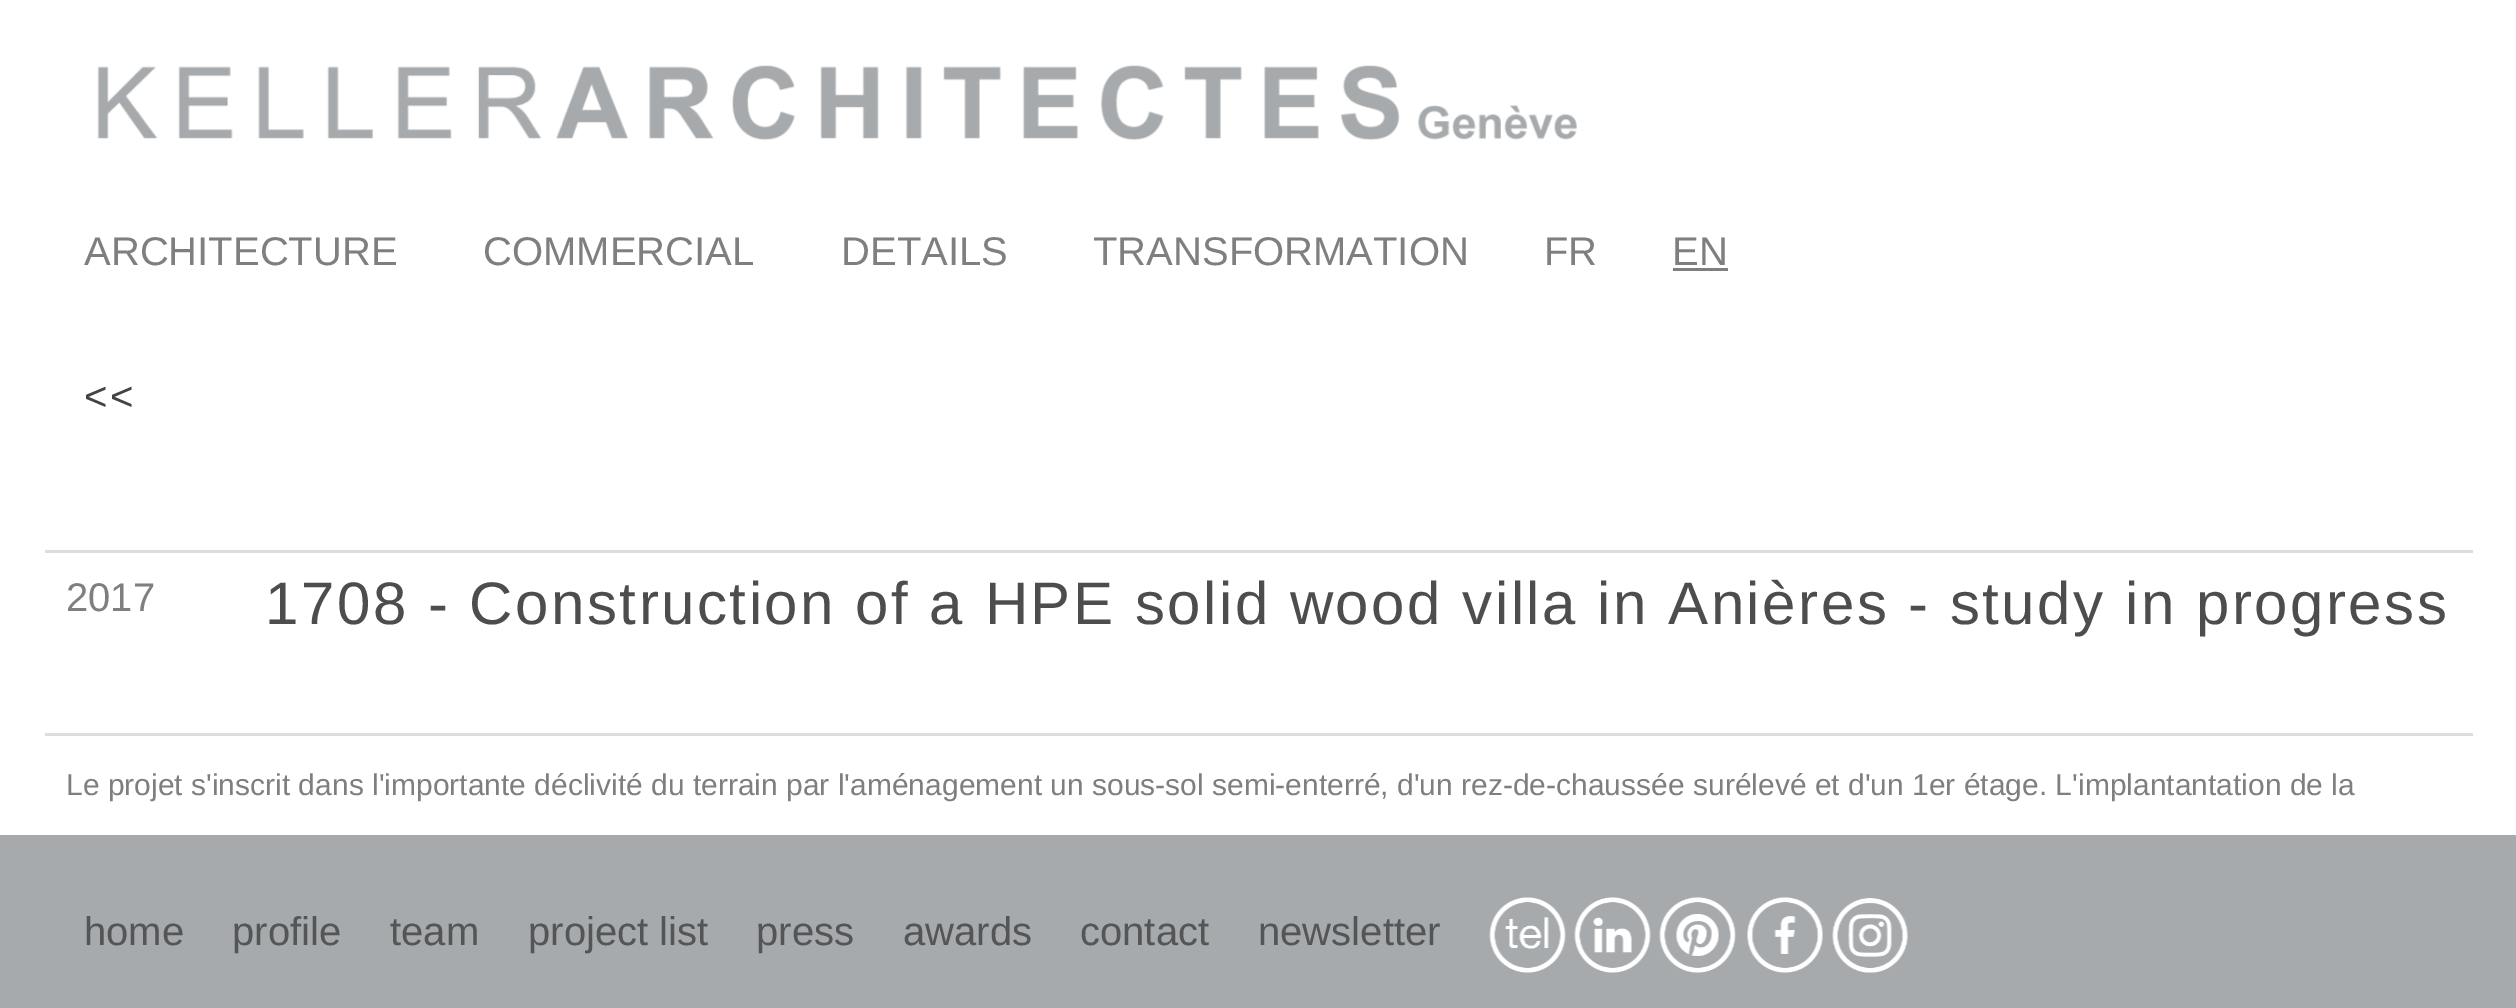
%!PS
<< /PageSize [2516 1008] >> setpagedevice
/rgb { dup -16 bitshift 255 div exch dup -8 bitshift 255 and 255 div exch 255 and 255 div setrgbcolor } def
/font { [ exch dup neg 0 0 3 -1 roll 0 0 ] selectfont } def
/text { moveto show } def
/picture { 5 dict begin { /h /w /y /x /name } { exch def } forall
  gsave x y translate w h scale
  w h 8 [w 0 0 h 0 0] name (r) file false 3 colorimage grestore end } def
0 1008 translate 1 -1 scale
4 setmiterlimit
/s1 { /LiberationSans-Regular 40 font 16#7F7F7F rgb } def
/s2 { /LiberationSans-Regular 30 font 16#7F7F7F rgb } def
/s3 { /LiberationSans-Regular 40 font 16#545557 rgb } def
16#FFFFFF rgb
0 0 2516 1008 rectfill
(pic1.raw) 97 65 1480 76 picture
s1
(ARCHITECTURE) 84 265 text
(COMMERCIAL) 483 265 text
(DETAILS) 841 265 text
(TRANSFORMATION) 1093 265 text
(FR) 1544 265 text
(EN) 1672 265 text
1673 268 55 3 rectfill
16#434343 rgb
84 410 moveto 2.5 0 (<<) ashow
s1
(2017) 66 611 text
16#DDDDDD rgb
45 550 2428 3 rectfill
/LiberationSans-Regular 60 font
16#4D4D4D rgb
265 624 moveto 2.5 0 (1708 - Construction of a HPE solid wood villa in Anières - study in progress) ashow
16#DDDDDD rgb
45 733 2428 3 rectfill
s2
(Le projet s'inscrit dans l'importante déclivité du terrain par l'aménagement un sous-sol semi-enterré, d'un rez-de-chaussée surélevé et d'un 1er étage. L'implantantation de la) 66 795 text
16#A7AAAD rgb
0 835 2516 173 rectfill
s3
(home) 84 945 text
(profile) 232 945 text
(team) 390 945 text
(project list) 528 945 text
(press) 756 945 text
(awards) 903 945 text
(contact) 1080 945 text
(newsletter) 1258 945 text
(pic2.raw) 1489 897 77 76 picture
(pic3.raw) 1574 897 77 76 picture
(pic4.raw) 1659 897 77 76 picture
(pic5.raw) 1747 897 76 76 picture
(pic6.raw) 1832 898 76 75 picture
showpage
